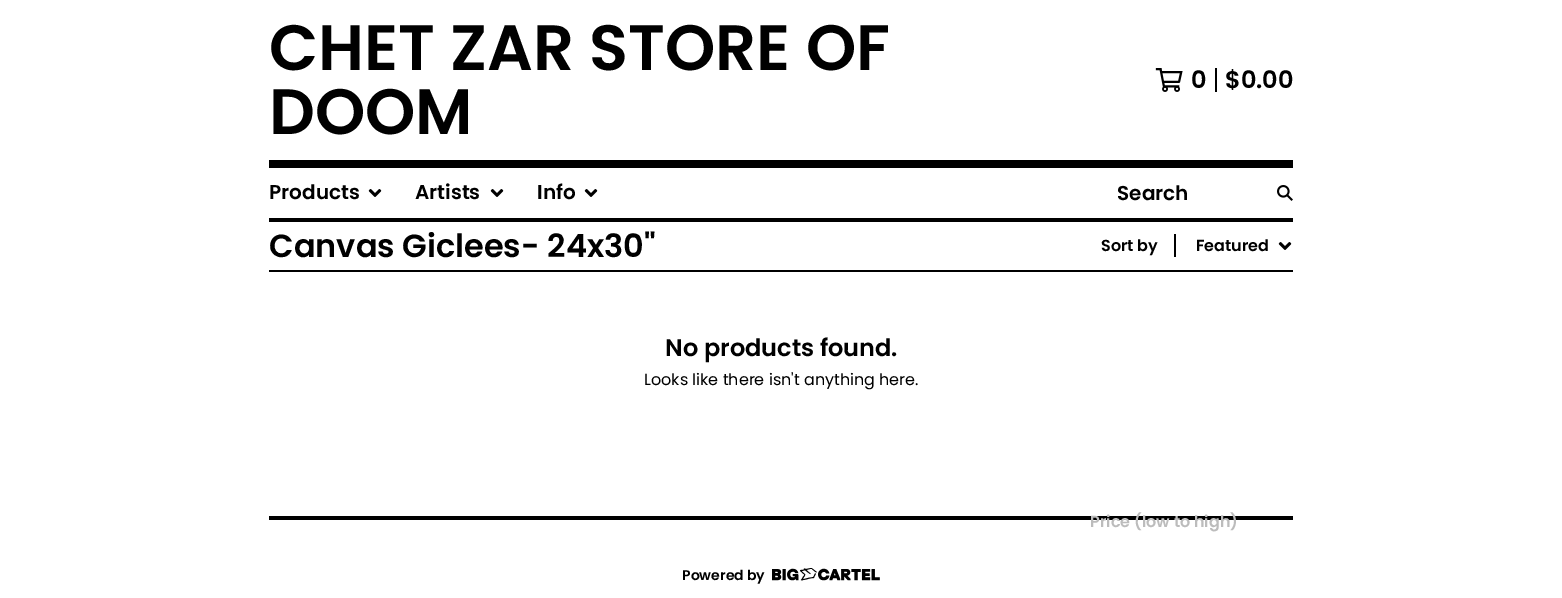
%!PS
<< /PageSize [1562 598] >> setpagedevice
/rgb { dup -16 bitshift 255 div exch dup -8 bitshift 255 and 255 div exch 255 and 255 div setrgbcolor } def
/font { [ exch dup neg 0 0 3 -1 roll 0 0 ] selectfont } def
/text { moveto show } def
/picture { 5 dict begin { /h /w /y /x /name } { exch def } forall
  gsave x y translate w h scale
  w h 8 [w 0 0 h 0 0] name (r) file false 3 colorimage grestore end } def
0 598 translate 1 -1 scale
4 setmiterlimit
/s1 { /Poppins-SemiBold 64 font 16#000000 rgb } def
/s2 { /Poppins-SemiBold 24 font 16#000000 rgb } def
/s3 { /Poppins-SemiBold 20 font 16#000000 rgb } def
/s4 { /Poppins-SemiBold 32 font 16#000000 rgb } def
/s5 { /Poppins-SemiBold 16 font 16#000000 rgb } def
/s6 { /Poppins-SemiBold 16 font 16#BCBCBC rgb } def
/s7 { /Poppins-Regular 16 font 16#000000 rgb } def
/s8 { /Poppins-SemiBold 14 font 16#000000 rgb } def
16#FFFFFF rgb
0 0 1562 598 rectfill
16#000000 rgb
269 160 1024 8 rectfill
s1
(CHET ZAR STORE OF) 269 70 text
(DOOM) 269 134 text
(pic1.raw) 1155 68 28 24 picture
1215 68 2 24 rectfill
s2
(0) 1191 88 text
($0.00) 1225 88 text
269 218 1024 4 rectfill
s3
(Products) 269 199 text
(pic2.raw) 368 189 14 8 picture
(Artists) 415 199 text
(pic2.raw) 490 189 14 8 picture
(Info) 537 199 text
(pic2.raw) 584 189 14 8 picture
(Search) 1117 200 text
(pic3.raw) 1277 185 16 16 picture
269 270 1024 2 rectfill
s4
(Canvas Giclees- 24x30") 269 257 text
s5
(Sort by) 1101 251 text
1174 234 2 23 rectfill
(Featured) 1196 251 text
(pic2.raw) 1278 242 14 8 picture
269 516 1024 4 rectfill
s6
(Price \(low to high\)) 1090 527 text
s2
(No products found.) 665 356 text
s7
(Looks like there isn't anything here.) 644 385 text
s8
(Powered by) 682 580 text
(pic4.raw) 772 568 108 13 picture
showpage
